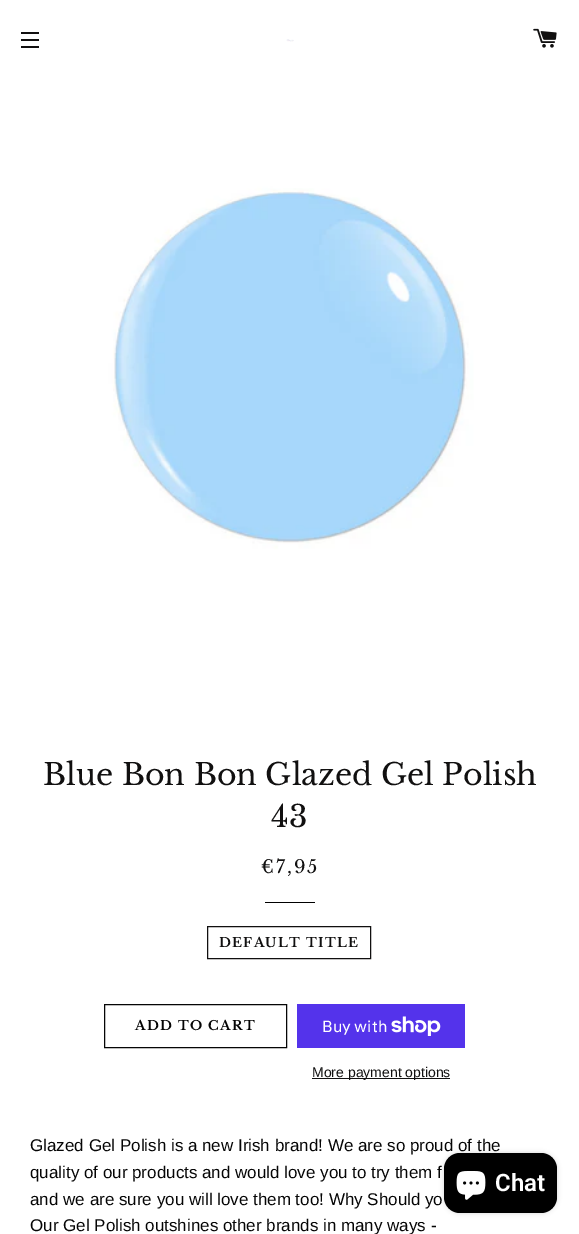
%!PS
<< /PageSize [579 1234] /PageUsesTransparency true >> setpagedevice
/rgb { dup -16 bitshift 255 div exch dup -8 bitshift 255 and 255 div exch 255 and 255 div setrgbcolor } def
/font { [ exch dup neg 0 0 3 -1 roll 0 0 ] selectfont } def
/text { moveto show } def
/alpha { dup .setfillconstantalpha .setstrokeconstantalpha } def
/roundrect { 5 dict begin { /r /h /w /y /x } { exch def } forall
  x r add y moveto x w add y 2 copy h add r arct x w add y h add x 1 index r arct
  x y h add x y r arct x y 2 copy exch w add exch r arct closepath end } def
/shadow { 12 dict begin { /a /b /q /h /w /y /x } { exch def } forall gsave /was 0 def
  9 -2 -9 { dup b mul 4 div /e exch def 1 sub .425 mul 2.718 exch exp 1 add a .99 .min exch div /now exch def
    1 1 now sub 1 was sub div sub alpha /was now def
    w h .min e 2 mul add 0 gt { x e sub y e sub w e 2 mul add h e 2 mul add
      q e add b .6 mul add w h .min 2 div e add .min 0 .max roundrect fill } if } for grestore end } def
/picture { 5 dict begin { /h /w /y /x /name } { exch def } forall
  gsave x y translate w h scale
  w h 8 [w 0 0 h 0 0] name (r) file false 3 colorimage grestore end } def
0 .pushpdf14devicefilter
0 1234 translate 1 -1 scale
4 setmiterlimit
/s1 { /LibreBaskerville-Regular 30 font 16#111010 rgb } def
/s2 { /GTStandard-Regular 16 font 16#FFFFFF rgb } def
/s3 { /LiberationSans-Regular 14 font 16#111010 rgb } def
/s4 { /LiberationSans-Regular 17 font 16#050505 rgb } def
/s5 { /Roboto-SemiBold 24 font 16#FFFFFF rgb } def
16#FFFFFF rgb
0 0 579 1234 rectfill
16#111010 rgb
21 32 18 2 rectfill
21 39 18 2 rectfill
21 46 18 2 rectfill
(pic1.raw) 286 39 8 3 picture
(pic2.raw) 533 28 24 20 picture
(pic3.raw) 0 75 579 579 picture
s1
(Blue Bon Bon Glazed Gel Polish) 43 785 text
(43) 271 827 text
/LibreBaskerville-Regular 18 font
261 873 moveto 2 0 (€7,95) ashow
16#000000 rgb
265 902 50 1 rectfill
16#111010 rgb
207.5 926.5 163 32 rectstroke
/LibreBaskerville-Bold 13 font
219 947 moveto 1.25 0 (DEFAULT TITLE) ashow
16#050505 rgb
104.5 1004.5 182 43 rectstroke
135 1030 moveto 1.25 0 (ADD TO CART) ashow
16#5433EB rgb
297 1004 168 44 rectfill
s2
(Buy with) 322 1032 text
(pic4.raw) 391 1016 50 20 picture
16#111010 rgb
312 1078 138 1 rectfill
s3
(More payment options) 312 1077 text
s4
(Glazed Gel Polish is a new Irish brand! We are so proud of the) 30 1151 text
(quality of our products and would love you to try them f) 30 1178 text
(and we are sure you will love them too! Why Should yo) 30 1205 text
(Our Gel Polish outshines other brands in many ways -) 30 1231 text
16#000000 rgb
444 1153 113 60 16 2.5 0.15 shadow
444 1153 113 60 16 roundrect fill
(pic5.raw) 456 1171 30 29 picture
s5
(Chat) 495 1191 text
.poppdf14devicefilter showpage
